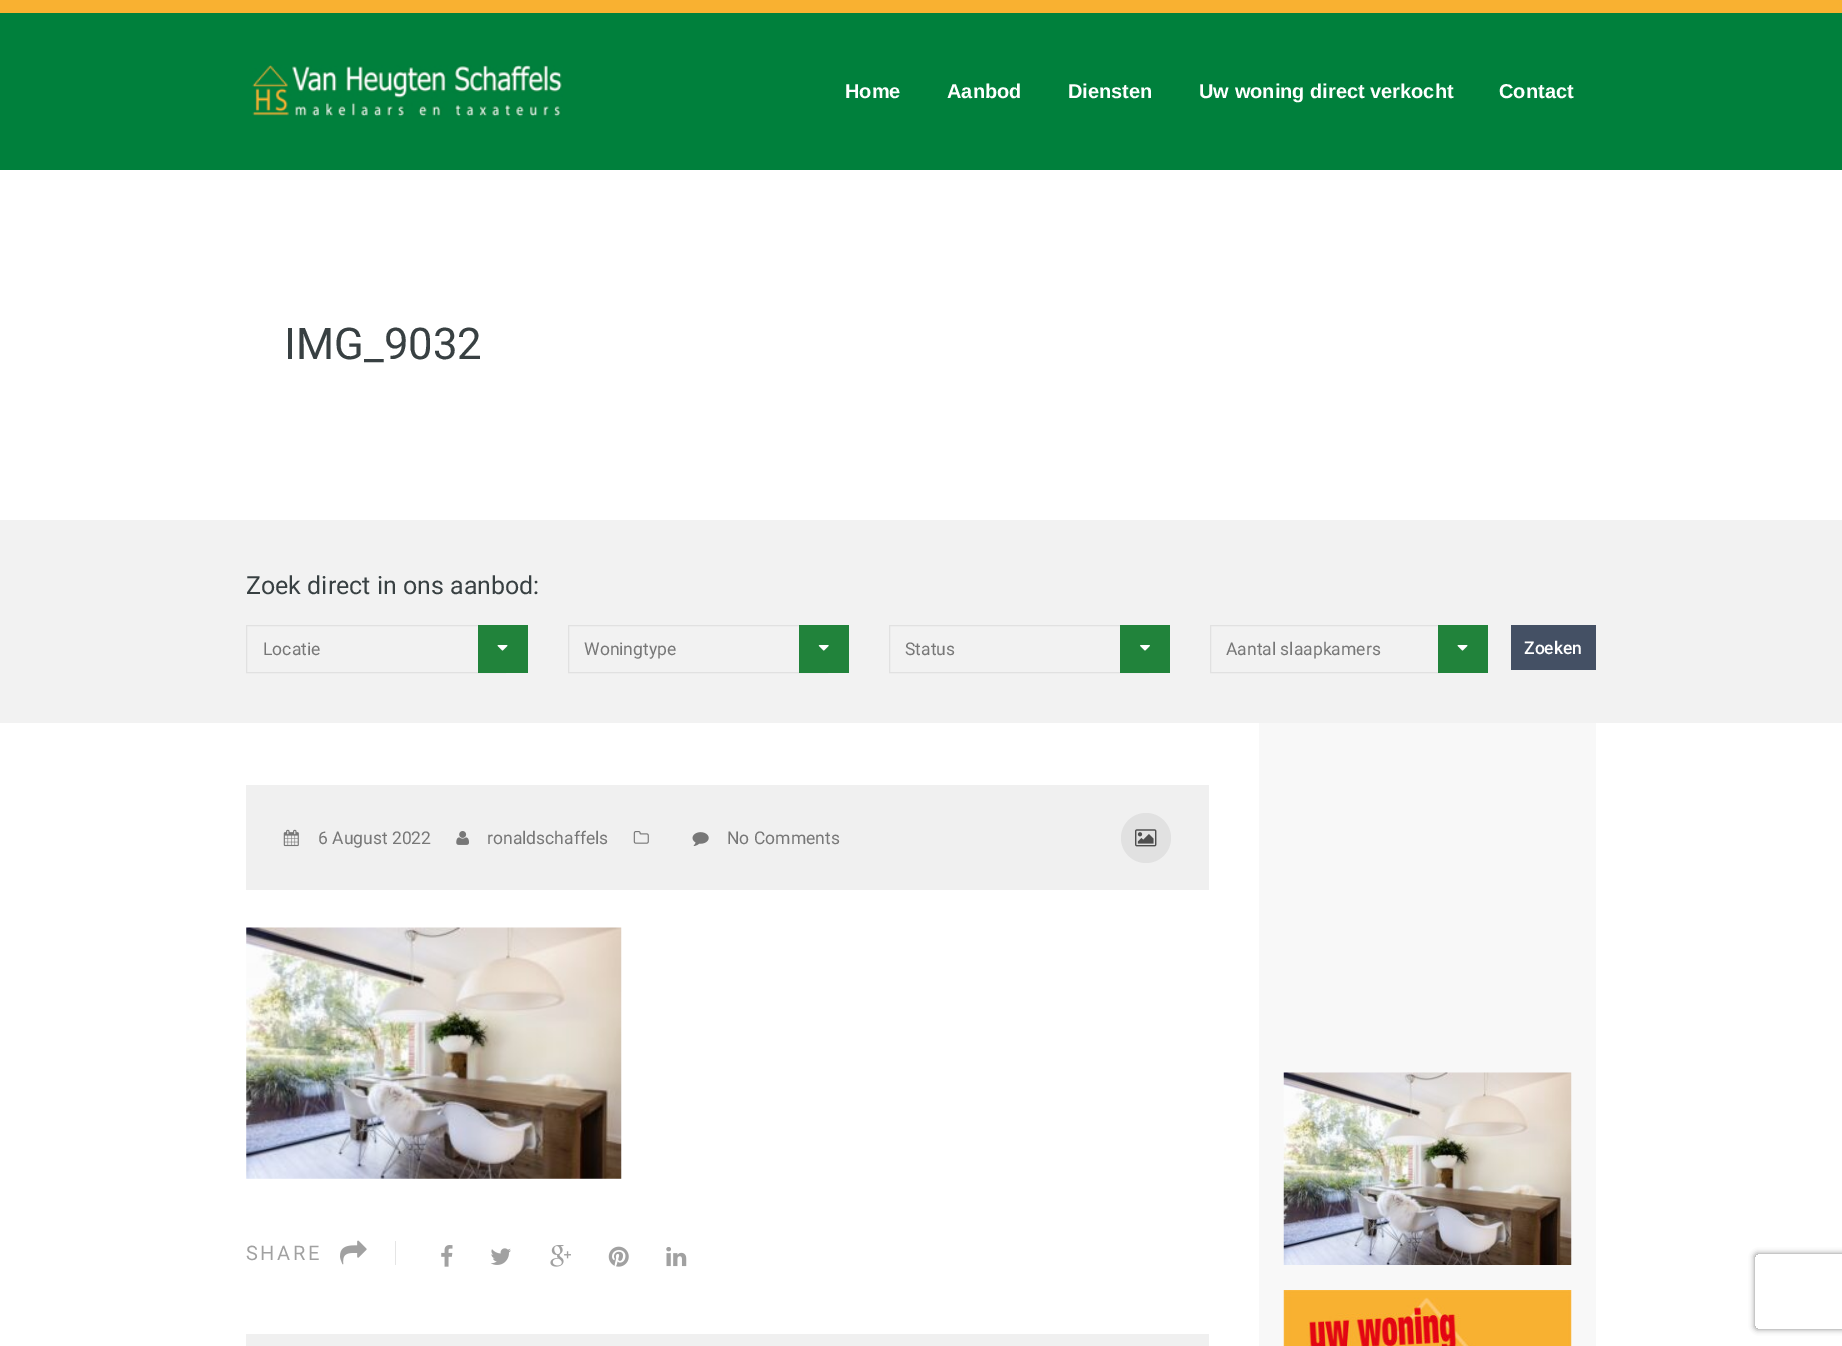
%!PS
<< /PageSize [1842 1346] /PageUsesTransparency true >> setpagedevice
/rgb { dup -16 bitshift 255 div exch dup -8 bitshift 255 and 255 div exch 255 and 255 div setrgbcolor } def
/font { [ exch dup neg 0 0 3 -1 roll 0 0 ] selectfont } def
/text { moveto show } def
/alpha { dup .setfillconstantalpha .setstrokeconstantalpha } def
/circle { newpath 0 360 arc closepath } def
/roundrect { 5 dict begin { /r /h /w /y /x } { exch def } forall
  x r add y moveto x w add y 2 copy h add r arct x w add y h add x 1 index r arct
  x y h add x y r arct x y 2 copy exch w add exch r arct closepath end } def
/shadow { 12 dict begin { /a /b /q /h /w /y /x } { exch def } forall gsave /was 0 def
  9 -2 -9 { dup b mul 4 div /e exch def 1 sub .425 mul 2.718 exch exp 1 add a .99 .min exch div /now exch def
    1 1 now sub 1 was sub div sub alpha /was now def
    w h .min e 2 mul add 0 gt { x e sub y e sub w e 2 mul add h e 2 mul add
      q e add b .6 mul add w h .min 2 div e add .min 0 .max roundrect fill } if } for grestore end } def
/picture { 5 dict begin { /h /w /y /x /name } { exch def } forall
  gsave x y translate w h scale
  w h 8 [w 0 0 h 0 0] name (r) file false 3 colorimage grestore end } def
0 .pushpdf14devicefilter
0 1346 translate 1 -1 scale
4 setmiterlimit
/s1 { /LiberationSans-Bold 20 font 16#FFFFFF rgb } def
/s2 { /Roboto-Regular 43.75 font 16#384042 rgb } def
/s3 { /Roboto-Regular 25 font 16#384042 rgb } def
/s4 { /Roboto-Regular 17.5 font 16#777777 rgb } def
/s5 { /Roboto-Medium 17.5 font 16#FFFFFF rgb } def
16#FFFFFF rgb
0 0 1842 1346 rectfill
16#00803C rgb
0 13 1842 157 rectfill
16#F9B131 rgb
0 0 1842 13 rectfill
(pic1.raw) 252 65 311 52 picture
s1
(Home) 845 98 text
(Aanbod) 947 98 text
(Diensten) 1068 98 text
(Uw woning direct verkocht) 1199 98 text
(Contact) 1499 98 text
s2
(IMG_9032) 284 359 text
16#F2F2F2 rgb
0 520 1842 203 rectfill
s3
(Zoek direct in ons aanbod:) 246 594 text
16#E1E1E1 rgb
246.5 625.5 259 47 rectstroke
s4
(Locatie) 263 655 text
16#21833B rgb
478 625 50 48 rectfill
(pic2.raw) 497 645 11 6 picture
16#E1E1E1 rgb
568.5 625.5 259 47 rectstroke
s4
(Woningtype) 584 655 text
16#21833B rgb
799 625 50 48 rectfill
(pic3.raw) 818 645 11 6 picture
16#E1E1E1 rgb
889.5 625.5 259 47 rectstroke
s4
(Status) 905 655 text
16#21833B rgb
1120 625 50 48 rectfill
(pic4.raw) 1140 645 10 6 picture
16#E1E1E1 rgb
1210.5 625.5 229 47 rectstroke
s4
(Aantal slaapkamers) 1226 655 text
16#21833B rgb
1438 625 50 48 rectfill
(pic2.raw) 1457 645 11 6 picture
16#445064 rgb
1511 625 85 45 rectfill
s5
(Zoeken) 1524 654 text
16#F0F0F0 rgb
246 785 963 105 rectfill
(pic5.raw) 283 829 16 18 picture
s4
(6 August 2022) 318 844 text
(pic6.raw) 456 831 13 14 picture
(ronaldschaffels) 487 844 text
(pic7.raw) 633 831 16 13 picture
(pic8.raw) 692 832 17 14 picture
(No Comments) 727 844 text
16#E1E1E1 rgb
1146 838 25 circle fill
(pic9.raw) 1135 829 22 18 picture
(pic10.raw) 246 927 376 252 picture
16#E5E5E5 rgb
395 1241 1 24 rectfill
/Roboto-Regular 20 font
16#A1A1A1 rgb
246 1260 moveto 2.5 0 (SHARE) ashow
(pic11.raw) 340 1240 27 25 picture
(pic12.raw) 441 1245 12 22 picture
(pic13.raw) 490 1248 21 17 picture
(pic14.raw) 550 1245 21 22 picture
(pic15.raw) 608 1246 21 21 picture
(pic16.raw) 666 1247 21 20 picture
16#F0F0F0 rgb
246 1334 963 12 rectfill
16#F8F8F8 rgb
1259 723 337 623 rectfill
(pic17.raw) 1283 1072 289 193 picture
(pic18.raw) 1283 1290 289 56 picture
gsave
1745 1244 moveto 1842 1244 lineto 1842 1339 lineto 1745 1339 lineto closepath 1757.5 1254 moveto 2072.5 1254 lineto 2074 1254 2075 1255 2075 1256.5 curveto 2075 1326.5 lineto 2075 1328 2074 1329 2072.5 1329 curveto 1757.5 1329 lineto 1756 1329 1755 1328 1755 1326.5 curveto 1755 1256.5 lineto 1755 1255 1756 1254 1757.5 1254 curveto closepath eoclip newpath
16#808080 rgb
1755 1254 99 75 2.5 3 1 shadow
grestore
.poppdf14devicefilter showpage
